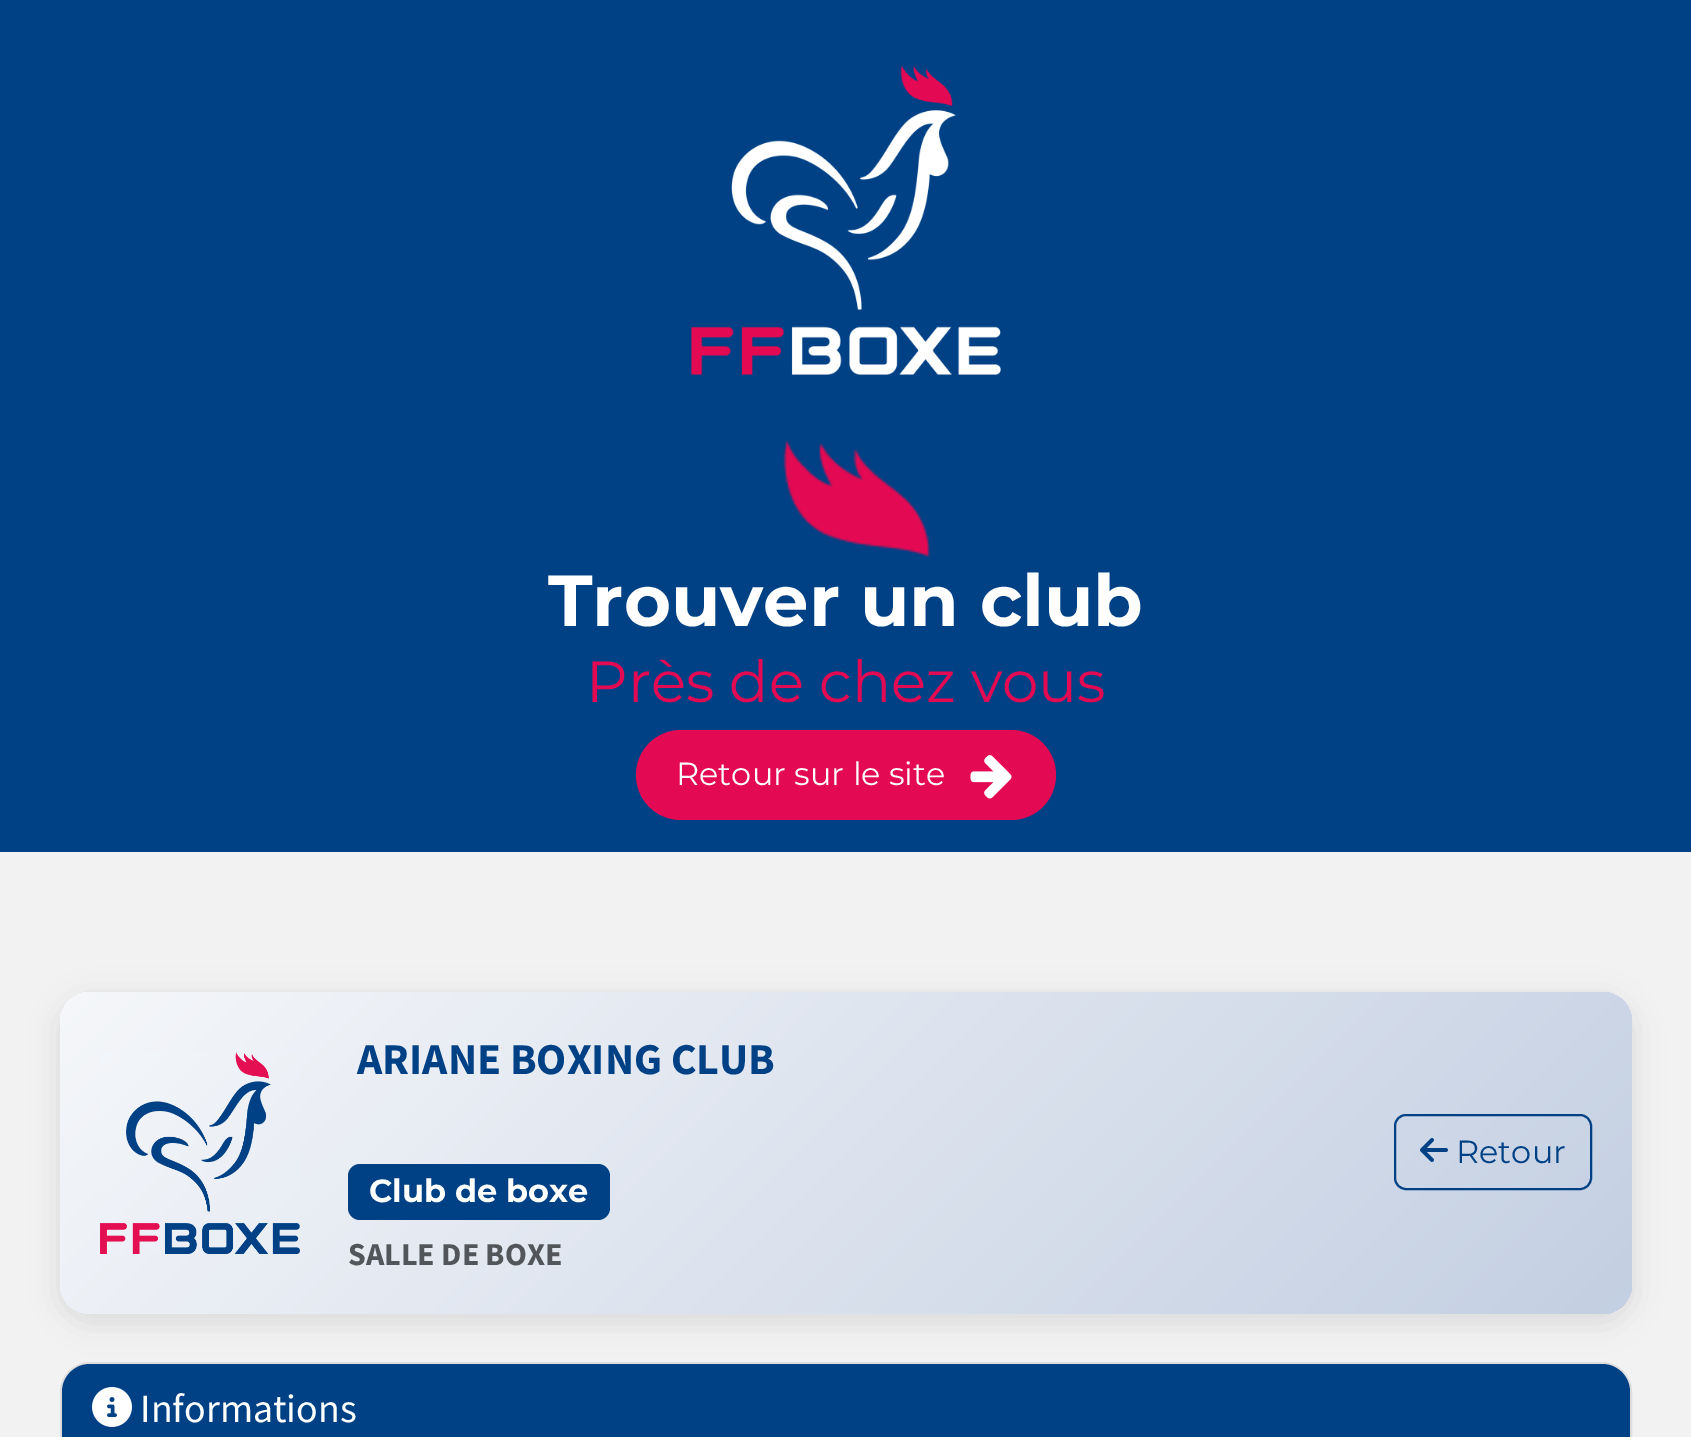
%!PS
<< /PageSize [1691 1437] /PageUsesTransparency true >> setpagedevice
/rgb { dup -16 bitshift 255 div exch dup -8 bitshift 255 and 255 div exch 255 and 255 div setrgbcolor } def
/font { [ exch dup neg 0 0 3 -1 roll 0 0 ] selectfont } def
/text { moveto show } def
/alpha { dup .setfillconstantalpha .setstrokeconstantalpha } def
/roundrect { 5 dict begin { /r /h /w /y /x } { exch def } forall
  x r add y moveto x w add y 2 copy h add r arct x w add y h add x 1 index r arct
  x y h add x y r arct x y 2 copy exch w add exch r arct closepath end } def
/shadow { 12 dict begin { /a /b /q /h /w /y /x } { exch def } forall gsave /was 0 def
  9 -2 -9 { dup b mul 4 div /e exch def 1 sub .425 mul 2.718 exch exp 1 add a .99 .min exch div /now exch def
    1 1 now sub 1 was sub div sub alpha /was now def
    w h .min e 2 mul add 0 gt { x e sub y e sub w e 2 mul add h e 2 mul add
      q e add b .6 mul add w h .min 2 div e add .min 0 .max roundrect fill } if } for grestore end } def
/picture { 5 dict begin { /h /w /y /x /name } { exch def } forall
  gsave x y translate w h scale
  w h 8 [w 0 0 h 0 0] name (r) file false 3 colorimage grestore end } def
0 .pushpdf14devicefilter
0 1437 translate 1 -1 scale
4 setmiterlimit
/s1 { /Montserrat-Bold 72 font 16#FFFFFF rgb } def
/s2 { /Montserrat-Regular 58 font 16#E30952 rgb } def
/s3 { /Montserrat-Regular 32 font 16#FFFFFF rgb } def
/s4 { /SourceSansPro-Bold 44 font 16#004185 rgb } def
/s5 { /Montserrat-Bold 32 font 16#FFFFFF rgb } def
/s6 { /SourceSansPro-Bold 32 font 16#52565B rgb } def
/s7 { /Montserrat-Regular 32 font 16#004185 rgb } def
/s8 { /SourceSansPro-Regular 40 font 16#FFFFFF rgb } def
16#004185 rgb
0 0 1691 1437 rectfill
(pic1.raw) 691 65 310 310 picture
(pic2.raw) 783 440 148 117 picture
s1
(Trouver un club) 548 626 text
s2
(Près de chez vous) 586 702 text
636 730 420 90 45 roundrect fill
s3
(Retour sur le site) 676 785 text
(pic3.raw) 970 755 42 44 picture
16#F2F2F2 rgb
0 852 1691 585 rectfill
16#000000 rgb
60 1000 1572 322 30 15 0.1 shadow
gsave 60 992 1572 322 30 roundrect clip newpath
<< /ShadingType 2 /ColorSpace /DeviceRGB /Coords [372 680 1320 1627] /Extend [true true] /Function << /FunctionType 2 /Domain [0 1] /C0 [0.961 0.969 0.98] /C1 [0.765 0.812 0.886] /N 1 >> >> shfill grestore
(pic4.raw) 100 1052 200 202 picture
s4
(ARIANE BOXING CLUB) 357 1074 text
348 1164 262 56 12 roundrect fill
s5
(Club de boxe) 369 1202 text
s6
(SALLE DE BOXE) 348 1265 text
16#004185 rgb
2 setlinewidth
1395 1115 196 74 11 roundrect stroke
(pic5.raw) 1420 1138 28 24 picture
s7
(Retour) 1456 1163 text
16#DDDDDD rgb
61 1363 1570 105 29 roundrect stroke
16#004185 rgb
90 1364 moveto 1602 1364 lineto 1617.5 1364 1630 1376.5 1630 1392 curveto 1630 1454 lineto 62 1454 lineto 62 1392 lineto 62 1376.5 74.5 1364 90 1364 curveto closepath fill
(pic6.raw) 92 1387 40 40 picture
s8
(Informations) 140 1422 text
.poppdf14devicefilter showpage
